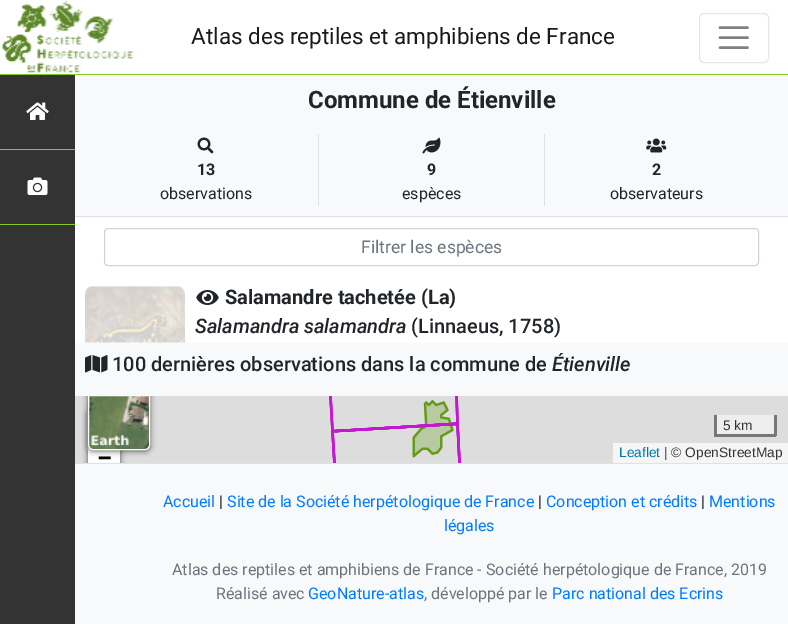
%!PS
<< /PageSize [788 624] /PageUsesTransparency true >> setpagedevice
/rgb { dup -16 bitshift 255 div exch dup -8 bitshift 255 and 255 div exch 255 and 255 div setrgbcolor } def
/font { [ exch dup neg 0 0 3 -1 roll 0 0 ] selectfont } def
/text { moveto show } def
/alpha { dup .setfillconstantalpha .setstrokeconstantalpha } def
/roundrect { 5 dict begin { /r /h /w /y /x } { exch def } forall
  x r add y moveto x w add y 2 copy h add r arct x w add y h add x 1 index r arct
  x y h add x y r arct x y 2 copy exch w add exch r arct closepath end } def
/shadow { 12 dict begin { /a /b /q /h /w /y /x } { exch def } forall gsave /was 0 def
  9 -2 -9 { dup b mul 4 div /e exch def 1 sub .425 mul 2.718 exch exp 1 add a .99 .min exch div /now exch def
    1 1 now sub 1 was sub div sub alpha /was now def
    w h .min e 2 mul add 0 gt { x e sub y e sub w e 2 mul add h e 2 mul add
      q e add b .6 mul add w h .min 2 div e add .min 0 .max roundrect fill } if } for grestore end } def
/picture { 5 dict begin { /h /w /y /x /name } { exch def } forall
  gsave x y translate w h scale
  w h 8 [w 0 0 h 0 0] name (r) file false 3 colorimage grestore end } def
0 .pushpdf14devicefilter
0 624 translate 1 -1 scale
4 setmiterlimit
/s1 { /Roboto-Regular 22.5 font 16#1A1A1A rgb } def
/s2 { /Roboto-Bold 24 font 16#212529 rgb } def
/s3 { /Roboto-Bold 16 font 16#212529 rgb } def
/s4 { /Roboto-Regular 16 font 16#212529 rgb } def
/s5 { /Roboto-Regular 17.5 font 16#6C757D rgb } def
/s6 { /Roboto-Bold 20 font 16#212529 rgb } def
/s7 { /Roboto-MediumItalic 20 font 16#212529 rgb } def
/s8 { /Roboto-Medium 20 font 16#212529 rgb } def
/s9 { /LiberationSans-Regular 13.75 font 16#333333 rgb } def
/s10 { /LiberationSans-Regular 13.75 font 16#0078A8 rgb } def
/s11 { /DejaVuSansMono-Bold 22.5 font 16#000000 rgb } def
/s12 { /Roboto-Regular 16 font 16#007BFF rgb } def
/s13 { /Roboto-Regular 16 font 16#6C757D rgb } def
16#DEE2E6 rgb
0 0 788 624 rectfill
16#FFFFFF rgb
0 0 788 74 rectfill
16#82C91E rgb
0 74 788 1 rectfill
(pic1.raw) 2 0 132 73 picture
s1
(Atlas des reptiles et amphibiens de France) 191 44 text
16#E6E6E6 rgb
699.5 13.5 69 49 4.5 roundrect stroke
16#808080 rgb
2.5 setlinewidth
1 setlinecap
720 27.5 moveto 747.5 27.5 lineto 720 37.5 moveto 747.5 37.5 lineto 720 47.5 moveto 747.5 47.5 lineto stroke
16#333333 rgb
0 75 75 549 rectfill
16#82C91E rgb
0 149 75 1 rectfill
(pic2.raw) 26 102 23 18 picture
0 224 75 1 rectfill
(pic3.raw) 27 177 21 18 picture
16#F8F9FA rgb
75 75 713 143 rectfill
16#DEE2E6 rgb
75 216 713 1 rectfill
s2
(Commune de Étienville) 308 108 text
16#DEE2E6 rgb
318 134 1 72 rectfill
(pic4.raw) 197 137 17 17 picture
s3
(13) 197 175 text
s4
(observations) 160 199 text
16#DEE2E6 rgb
544 134 1 72 rectfill
(pic5.raw) 422 137 19 17 picture
s3
(9) 427 175 text
s4
(espèces) 402 199 text
(pic6.raw) 646 138 21 15 picture
s3
(2) 652 175 text
s4
(observateurs) 610 199 text
16#FFFFFF rgb
75 218 713 125 rectfill
16#CED4DA rgb
1 setlinewidth
0 setlinecap
104.5 228.5 654 37 3.5 roundrect stroke
s5
(Filtrer les espèces) 361 253 text
(pic7.raw) 85 286 100 57 picture
(pic8.raw) 196 290 23 15 picture
s6
(Salamandre tachetée \(La\)) 225 304 text
s7
(Salamandra salamandra) 195 333 text
s8
(\(Linnaeus, 1758\)) 411 333 text
16#F8F9FA rgb
75 343 713 53 rectfill
(pic9.raw) 85 355 23 18 picture
s8
(100 dernières observations dans la commune de) 112 371 text
s7
(Étienville) 552 371 text
16#DDDDDD rgb
75 396 713 67 rectfill
(pic10.raw) 329 396 132 67 picture
16#F8F9FA rgb
75 464 713 160 rectfill
gsave
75 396 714 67 rectclip
16#000000 rgb
88 410 32 65 5 3 0.65 shadow
grestore
16#FFFFFF rgb
88 445 32 18 rectfill
gsave
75 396 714 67 rectclip
16#000000 rgb
88 389 62 62 5 3 0.65 shadow
grestore
88 396 moveto 150 396 lineto 150 445 lineto 150 448 148 450 145 450 curveto 93 450 lineto 90 450 88 448 88 445 curveto closepath fill
(pic11.raw) 87 396 63 54 picture
gsave
75 396 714 67 rectclip
88.5 388.5 61 61 4.5 roundrect stroke
grestore
16#EEEEEE rgb
717 415 57 19 rectfill
16#777777 rgb
774 415 3 21 rectfill
714 434 62 3 rectfill
714 415 3 21 rectfill
s9
(5 km) 723 430 text
16#F5F5F5 rgb
613 443 175 20 rectfill
s10
(Leaflet) 619 457 text
s9
(| © OpenStreetMap) 664 457 text
s11
(−) 98 465 text
s12
(Accueil) 163 507 text
s4
(|) 219 507 text
s12
(Site de la Société herpétologique de France) 227 507 text
s4
(|) 538 507 text
s12
(Conception et crédits) 546 507 text
s4
(|) 701 507 text
s12
(Mentions) 709 507 text
(légales) 444 531 text
s13
(Atlas des reptiles et amphibiens de France - Société herpétologique de France, 2019) 172 575 text
(Réalisé avec) 216 599 text
s12
(GeoNature-atlas) 308 599 text
s13
(, développé par le) 424 599 text
s12
(Parc national des Ecrins) 552 599 text
.poppdf14devicefilter showpage
